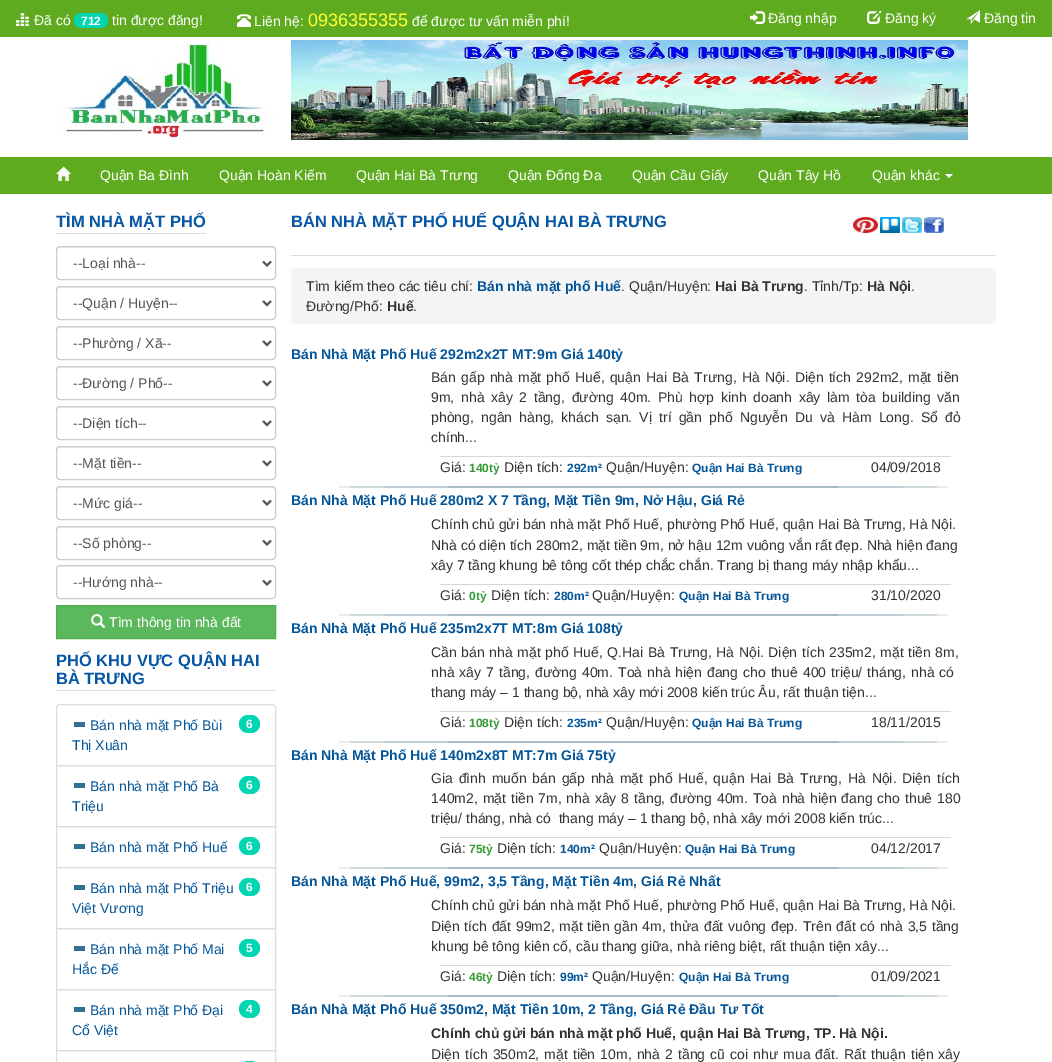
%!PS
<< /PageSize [1052 1062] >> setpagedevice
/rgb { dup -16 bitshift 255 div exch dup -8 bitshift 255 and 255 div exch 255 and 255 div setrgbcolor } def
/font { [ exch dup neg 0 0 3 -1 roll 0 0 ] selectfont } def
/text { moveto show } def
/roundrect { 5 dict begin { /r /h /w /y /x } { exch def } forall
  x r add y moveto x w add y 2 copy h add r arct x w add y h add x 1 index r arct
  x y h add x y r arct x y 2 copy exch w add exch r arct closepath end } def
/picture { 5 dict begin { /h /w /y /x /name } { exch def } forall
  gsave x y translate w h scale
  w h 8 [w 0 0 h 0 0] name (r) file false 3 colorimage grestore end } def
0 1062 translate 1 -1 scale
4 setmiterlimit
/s1 { /LiberationSans-Regular 14 font 16#FFFFFF rgb } def
/s2 { /LiberationSans-Bold 12 font 16#FFFFFF rgb } def
/s3 { /LiberationSans-Regular 18 font 16#FFFF33 rgb } def
/s4 { /LiberationSans-Bold 16.5 font 16#0556A4 rgb } def
/s5 { /LiberationSans-Regular 14 font 16#555555 rgb } def
/s6 { /LiberationSans-Regular 14 font 16#055699 rgb } def
/s7 { /LiberationSans-Regular 14 font 16#333333 rgb } def
/s8 { /LiberationSans-Bold 14 font 16#055699 rgb } def
/s9 { /LiberationSans-Bold 14 font 16#333333 rgb } def
/s10 { /LiberationSans-Bold 12 font 16#339933 rgb } def
/s11 { /LiberationSans-Bold 12 font 16#055699 rgb } def
16#FFFFFF rgb
0 0 1052 1062 rectfill
16#5EAB1F rgb
0 0 1052 37 rectfill
(pic1.raw) 16 13 13 13 picture
s1
(Đã có) 34 25 text
16#00D6B2 rgb
74 13 34 15 7.5 roundrect fill
s2
(712) 81 25 text
s1
(tin được đăng!) 112 25 text
(pic2.raw) 237 14 14 13 picture
(Liên hệ:) 254 26 text
s3
(0936355355) 308 26 text
s1
(để được tư vấn miễn phí!) 412 26 text
(pic3.raw) 750 11 16 13 picture
(Đăng nhập) 768 23 text
(pic4.raw) 867 10 15 14 picture
(Đăng ký) 885 23 text
(pic5.raw) 966 10 14 14 picture
(Đăng tin) 984 23 text
(pic6.raw) 62 41 212 100 picture
(pic7.raw) 291 40 677 100 picture
16#5EAB1F rgb
0 157 1052 37 rectfill
(pic8.raw) 56 166 15 15 picture
s1
(Quận Ba Đình) 100 180 text
(Quận Hoàn Kiếm) 219 180 text
(Quận Hai Bà Trưng) 356 180 text
(Quận Đống Đa) 508 180 text
(Quận Cầu Giấy) 632 180 text
(Quận Tây Hồ) 758 180 text
(Quận khác) 872 180 text
16#FAFAFA rgb
945 174 moveto 953 174 lineto 949 178 lineto closepath fill
16#DDDDDD rgb
56 233 150 1 rectfill
s4
(TÌM NHÀ MẶT PHỐ) 56 227 text
16#ECECEC rgb
60 248 moveto 272 248 lineto 274 248 275 249 275 251 curveto 275 250 lineto 275 248 274 247 272 247 curveto 60 247 lineto 58 247 57 248 57 250 curveto 57 251 lineto 57 249 58 248 60 248 curveto closepath fill
16#CCCCCC rgb
56.5 246.5 219 33 3.5 roundrect stroke
16#555555 rgb
2 setlinewidth
263 261.5 moveto 267 265.5 lineto 271 261.5 lineto stroke
s5
(--Loại nhà--) 73 268 text
16#ECECEC rgb
60 288 moveto 272 288 lineto 274 288 275 289 275 291 curveto 275 290 lineto 275 288 274 287 272 287 curveto 60 287 lineto 58 287 57 288 57 290 curveto 57 291 lineto 57 289 58 288 60 288 curveto closepath fill
16#CCCCCC rgb
1 setlinewidth
56.5 286.5 219 33 3.5 roundrect stroke
16#555555 rgb
2 setlinewidth
263 301 moveto 267 305 lineto 271 301 lineto stroke
(--Quận / Huyện--) 73 308 text
16#ECECEC rgb
60 328 moveto 272 328 lineto 274 328 275 329 275 331 curveto 275 330 lineto 275 328 274 327 272 327 curveto 60 327 lineto 58 327 57 328 57 330 curveto 57 331 lineto 57 329 58 328 60 328 curveto closepath fill
16#CCCCCC rgb
1 setlinewidth
56.5 326.5 219 33 3.5 roundrect stroke
16#555555 rgb
2 setlinewidth
263 341 moveto 267 345 lineto 271 341 lineto stroke
(--Phường / Xã--) 73 348 text
16#ECECEC rgb
60 368 moveto 272 368 lineto 274 368 275 369 275 371 curveto 275 370 lineto 275 368 274 367 272 367 curveto 60 367 lineto 58 367 57 368 57 370 curveto 57 371 lineto 57 369 58 368 60 368 curveto closepath fill
16#CCCCCC rgb
1 setlinewidth
56.5 366.5 219 33 3.5 roundrect stroke
16#555555 rgb
2 setlinewidth
263 381 moveto 267 385 lineto 271 381 lineto stroke
(--Đường / Phố--) 73 388 text
16#ECECEC rgb
60 408 moveto 272 408 lineto 274 408 275 409 275 411 curveto 275 410 lineto 275 408 274 407 272 407 curveto 60 407 lineto 58 407 57 408 57 410 curveto 57 411 lineto 57 409 58 408 60 408 curveto closepath fill
16#CCCCCC rgb
1 setlinewidth
56.5 406.5 219 33 3.5 roundrect stroke
16#555555 rgb
2 setlinewidth
263 421 moveto 267 425 lineto 271 421 lineto stroke
(--Diện tích--) 73 428 text
16#ECECEC rgb
60 448 moveto 272 448 lineto 274 448 275 449 275 451 curveto 275 450 lineto 275 448 274 447 272 447 curveto 60 447 lineto 58 447 57 448 57 450 curveto 57 451 lineto 57 449 58 448 60 448 curveto closepath fill
16#CCCCCC rgb
1 setlinewidth
56.5 446.5 219 33 3.5 roundrect stroke
16#555555 rgb
2 setlinewidth
263 461 moveto 267 465 lineto 271 461 lineto stroke
(--Mặt tiền--) 73 468 text
16#ECECEC rgb
60 488 moveto 272 488 lineto 274 488 275 489 275 491 curveto 275 490 lineto 275 488 274 487 272 487 curveto 60 487 lineto 58 487 57 488 57 490 curveto 57 491 lineto 57 489 58 488 60 488 curveto closepath fill
16#CCCCCC rgb
1 setlinewidth
56.5 486.5 219 33 3.5 roundrect stroke
16#555555 rgb
2 setlinewidth
263 500.5 moveto 267 504.5 lineto 271 500.5 lineto stroke
(--Mức giá--) 73 508 text
16#ECECEC rgb
60 528 moveto 272 528 lineto 274 528 275 529 275 531 curveto 275 530 lineto 275 528 274 527 272 527 curveto 60 527 lineto 58 527 57 528 57 530 curveto 57 531 lineto 57 529 58 528 60 528 curveto closepath fill
16#CCCCCC rgb
1 setlinewidth
56.5 526.5 219 33 3.5 roundrect stroke
16#555555 rgb
2 setlinewidth
263 540.5 moveto 267 544.5 lineto 271 540.5 lineto stroke
(--Số phòng--) 73 548 text
16#ECECEC rgb
60 567 moveto 272 567 lineto 274 567 275 568 275 570 curveto 275 569 lineto 275 567 274 566 272 566 curveto 60 566 lineto 58 566 57 567 57 569 curveto 57 570 lineto 57 568 58 567 60 567 curveto closepath fill
16#CCCCCC rgb
1 setlinewidth
56.5 565.5 219 33 3.5 roundrect stroke
16#555555 rgb
2 setlinewidth
263 580.5 moveto 267 584.5 lineto 271 580.5 lineto stroke
(--Hướng nhà--) 73 587 text
16#5CB85C rgb
56.5 605.5 moveto 275.5 605.5 lineto 275.5 638.5 lineto 56.5 638.5 lineto closepath gsave fill grestore
16#4CAE4C rgb
1 setlinewidth
stroke
(pic9.raw) 91 614 15 14 picture
s1
(Tìm thông tin nhà đất) 109 627 text
16#DDDDDD rgb
56 690 220 1 rectfill
s4
(PHỐ KHU VỰC QUẬN HAI) 56 666 text
(BÀ TRƯNG) 56 684 text
16#DDDDDD rgb
60 704.5 moveto 272 704.5 lineto 274 704.5 275.5 706 275.5 708 curveto 275.5 765.5 lineto 56.5 765.5 lineto 56.5 708 lineto 56.5 706 58 704.5 60 704.5 curveto closepath stroke
16#31708F rgb
74 722 11 5 rectfill
s6
(Bán nhà mặt Phố Bùi) 90 730 text
16#00D6B2 rgb
239 715 21 18 9 roundrect fill
s2
(6) 246 728 text
s6
(Thị Xuân) 72 750 text
16#DDDDDD rgb
56.5 765.5 219 61 rectstroke
16#31708F rgb
74 783 11 5 rectfill
s6
(Bán nhà mặt Phố Bà) 90 791 text
16#00D6B2 rgb
239 776 21 18 9 roundrect fill
s2
(6) 246 789 text
s6
(Triệu) 72 811 text
16#DDDDDD rgb
56.5 826.5 219 41 rectstroke
16#31708F rgb
74 844 11 5 rectfill
s6
(Bán nhà mặt Phố Huế) 90 852 text
16#00D6B2 rgb
239 837 21 18 9 roundrect fill
s2
(6) 246 850 text
16#DDDDDD rgb
56.5 867.5 219 61 rectstroke
16#31708F rgb
74 885 11 5 rectfill
s6
(Bán nhà mặt Phố Triệu) 90 893 text
16#00D6B2 rgb
239 878 21 18 9 roundrect fill
s2
(6) 246 891 text
s6
(Việt Vương) 72 913 text
16#DDDDDD rgb
56.5 928.5 219 61 rectstroke
16#31708F rgb
74 946 11 5 rectfill
s6
(Bán nhà mặt Phố Mai) 90 954 text
16#00D6B2 rgb
239 939 21 18 9 roundrect fill
s2
(5) 246 952 text
s6
(Hắc Đế) 72 974 text
16#DDDDDD rgb
56.5 989.5 219 61 rectstroke
16#31708F rgb
74 1007 11 5 rectfill
s6
(Bán nhà mặt Phố Đại) 90 1015 text
16#00D6B2 rgb
239 1000 21 18 9 roundrect fill
s2
(4) 246 1013 text
s6
(Cổ Việt) 72 1035 text
16#DDDDDD rgb
56.5 1050.5 219 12 rectstroke
16#00D6B2 rgb
239 1061 21 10 9 roundrect fill
16#DDDDDD rgb
291 255 705 1 rectfill
s4
(BÁN NHÀ MẶT PHỐ HUẾ QUẬN HAI BÀ TRƯNG) 291 227 text
(pic10.raw) 853 217 25 16 picture
(pic11.raw) 880 217 20 16 picture
(pic12.raw) 902 217 20 16 picture
(pic13.raw) 924 217 20 16 picture
16#F5F5F5 rgb
291 268 705 56 4 roundrect fill
s7
(Tìm kiếm theo các tiêu chí:) 306 291 text
s8
(Bán nhà mặt phố Huế) 477 291 text
s7
(. Quận/Huyện:) 621 291 text
s9
(Hai Bà Trưng) 715 291 text
s7
(. Tỉnh/Tp:) 804 291 text
s9
(Hà Nội) 867 291 text
s7
(.) 911 291 text
(Đường/Phố:) 306 311 text
s9
(Huế) 387 311 text
s7
(.) 413 311 text
s8
(Bán Nhà Mặt Phố Huế 292m2x2T MT:9m Giá 140tỷ) 291 359 text
/LiberationSans-Regular 14 font
16#333333 rgb
431 382 moveto 1.25 0 32 (Bán gấp nhà mặt phố Huế, quận Hai Bà Trưng, Hà Nội. Diện tích 292m2, mặt tiền) widthshow
431 402 moveto 2.75 0 32 (9m, nhà xây 2 tầng, đường 40m. Phù hợp kinh doanh xây làm tòa building văn) widthshow
431 422 moveto 3.25 0 32 (phòng, ngân hàng, khách sạn. Vị trí gần phố Nguyễn Du và Hàm Long. Sổ đỏ) widthshow
(chính...) 431 442 text
16#D7D7D7 rgb
440 456 511 1 rectfill
s7
(Giá:) 440 472 text
s10
(140tỷ) 469 472 text
s7
(Diện tích:) 504 472 text
s11
(292m²) 567 472 text
s7
(Quận/Huyện:) 606 472 text
s11
(Quận Hai Bà Trưng) 692 472 text
s7
(04/09/2018) 871 472 text
16#AABBC3 rgb
643.5 486 moveto 811.5 486 948 486.5 948 487 curveto 948 487.5 811.5 488 643.5 488 curveto 475.5 488 339 487.5 339 487 curveto 339 486.5 475.5 486 643.5 486 curveto closepath fill
s8
(Bán Nhà Mặt Phố Huế 280m2 X 7 Tầng, Mặt Tiền 9m, Nở Hậu, Giá Rẻ) 291 505 text
s7
(Chính chủ gửi bán nhà mặt Phố Huế, phường Phố Huế, quận Hai Bà Trưng, Hà Nội.) 431 529 text
(Nhà có diện tích 280m2, mặt tiền 9m, nở hậu 12m vuông vắn rất đẹp. Nhà hiện đang) 431 550 text
(xây 7 tầng khung bê tông cốt thép chắc chắn. Trang bị thang máy nhập khẩu...) 431 570 text
16#D7D7D7 rgb
440 584 511 1 rectfill
s7
(Giá:) 440 600 text
s10
(0tỷ) 469 600 text
s7
(Diện tích:) 491 600 text
s11
(280m²) 554 600 text
s7
(Quận/Huyện:) 592 600 text
s11
(Quận Hai Bà Trưng) 679 600 text
s7
(31/10/2020) 871 600 text
16#AABBC3 rgb
643.5 614 moveto 811.5 614 948 614.5 948 615 curveto 948 615.5 811.5 616 643.5 616 curveto 475.5 616 339 615.5 339 615 curveto 339 614.5 475.5 614 643.5 614 curveto closepath fill
s8
(Bán Nhà Mặt Phố Huế 235m2x7T MT:8m Giá 108tỷ) 291 633 text
/LiberationSans-Regular 14 font
16#333333 rgb
431 657 moveto 0.75 0 32 (Cần bán nhà mặt phố Huế, Q.Hai Bà Trưng, Hà Nội. Diện tích 235m2, mặt tiền 8m,) widthshow
431 677 moveto 1.1 0 32 (nhà xây 7 tầng, đường 40m. Toà nhà hiện đang cho thuê 400 triệu/ tháng, nhà có) widthshow
(thang máy – 1 thang bộ, nhà xây mới 2008 kiến trúc Âu, rất thuận tiện...) 431 697 text
16#D7D7D7 rgb
440 711 511 1 rectfill
s7
(Giá:) 440 727 text
s10
(108tỷ) 469 727 text
s7
(Diện tích:) 504 727 text
s11
(235m²) 567 727 text
s7
(Quận/Huyện:) 606 727 text
s11
(Quận Hai Bà Trưng) 692 727 text
s7
(18/11/2015) 871 727 text
16#AABBC3 rgb
643.5 741 moveto 811.5 741 948 741.5 948 742 curveto 948 742.5 811.5 743 643.5 743 curveto 475.5 743 339 742.5 339 742 curveto 339 741.5 475.5 741 643.5 741 curveto closepath fill
s8
(Bán Nhà Mặt Phố Huế 140m2x8T MT:7m Giá 75tỷ) 291 760 text
/LiberationSans-Regular 14 font
16#333333 rgb
431 783 moveto 1.9 0 32 (Gia đình muốn bán gấp nhà mặt phố Huế, quận Hai Bà Trưng, Hà Nội. Diện tích) widthshow
431 803 moveto 1 0 32 (140m2, mặt tiền 7m, nhà xây 8 tầng, đường 40m. Toà nhà hiện đang cho thuê 180) widthshow
(triệu/ tháng, nhà có  thang máy – 1 thang bộ, nhà xây mới 2008 kiến trúc...) 431 823 text
16#D7D7D7 rgb
440 837 511 1 rectfill
s7
(Giá:) 440 853 text
s10
(75tỷ) 469 853 text
s7
(Diện tích:) 497 853 text
s11
(140m²) 560 853 text
s7
(Quận/Huyện:) 599 853 text
s11
(Quận Hai Bà Trưng) 685 853 text
s7
(04/12/2017) 871 853 text
16#AABBC3 rgb
643.5 867 moveto 811.5 867 948 867.5 948 868 curveto 948 868.5 811.5 869 643.5 869 curveto 475.5 869 339 868.5 339 868 curveto 339 867.5 475.5 867 643.5 867 curveto closepath fill
s8
(Bán Nhà Mặt Phố Huế, 99m2, 3,5 Tầng, Mặt Tiền 4m, Giá Rẻ Nhất) 291 886 text
s7
(Chính chủ gửi bán nhà mặt Phố Huế, phường Phố Huế, quận Hai Bà Trưng, Hà Nội.) 431 910 text
431 931 moveto 0.75 0 32 (Diện tích đất 99m2, mặt tiền gần 4m, thửa đất vuông đẹp. Trên đất có nhà 3,5 tầng) widthshow
(khung bê tông kiên cố, cầu thang giữa, nhà riêng biệt, rất thuận tiện xây...) 431 951 text
16#D7D7D7 rgb
440 965 511 1 rectfill
s7
(Giá:) 440 981 text
s10
(46tỷ) 469 981 text
s7
(Diện tích:) 497 981 text
s11
(99m²) 560 981 text
s7
(Quận/Huyện:) 592 981 text
s11
(Quận Hai Bà Trưng) 679 981 text
s7
(01/09/2021) 871 981 text
16#AABBC3 rgb
643.5 995 moveto 811.5 995 948 995.5 948 996 curveto 948 996.5 811.5 997 643.5 997 curveto 475.5 997 339 996.5 339 996 curveto 339 995.5 475.5 995 643.5 995 curveto closepath fill
s8
(Bán Nhà Mặt Phố Huế 350m2, Mặt Tiền 10m, 2 Tầng, Giá Rẻ Đầu Tư Tốt) 291 1014 text
s9
(Chính chủ gửi bán nhà mặt phố Huế, quận Hai Bà Trưng, TP. Hà Nội.) 431 1038 text
/LiberationSans-Regular 14 font
431 1059 moveto 1.2 0 32 (Diện tích 350m2, mặt tiền 10m, nhà 2 tầng cũ coi như mua đất. Rất thuận tiện xây) widthshow
showpage
